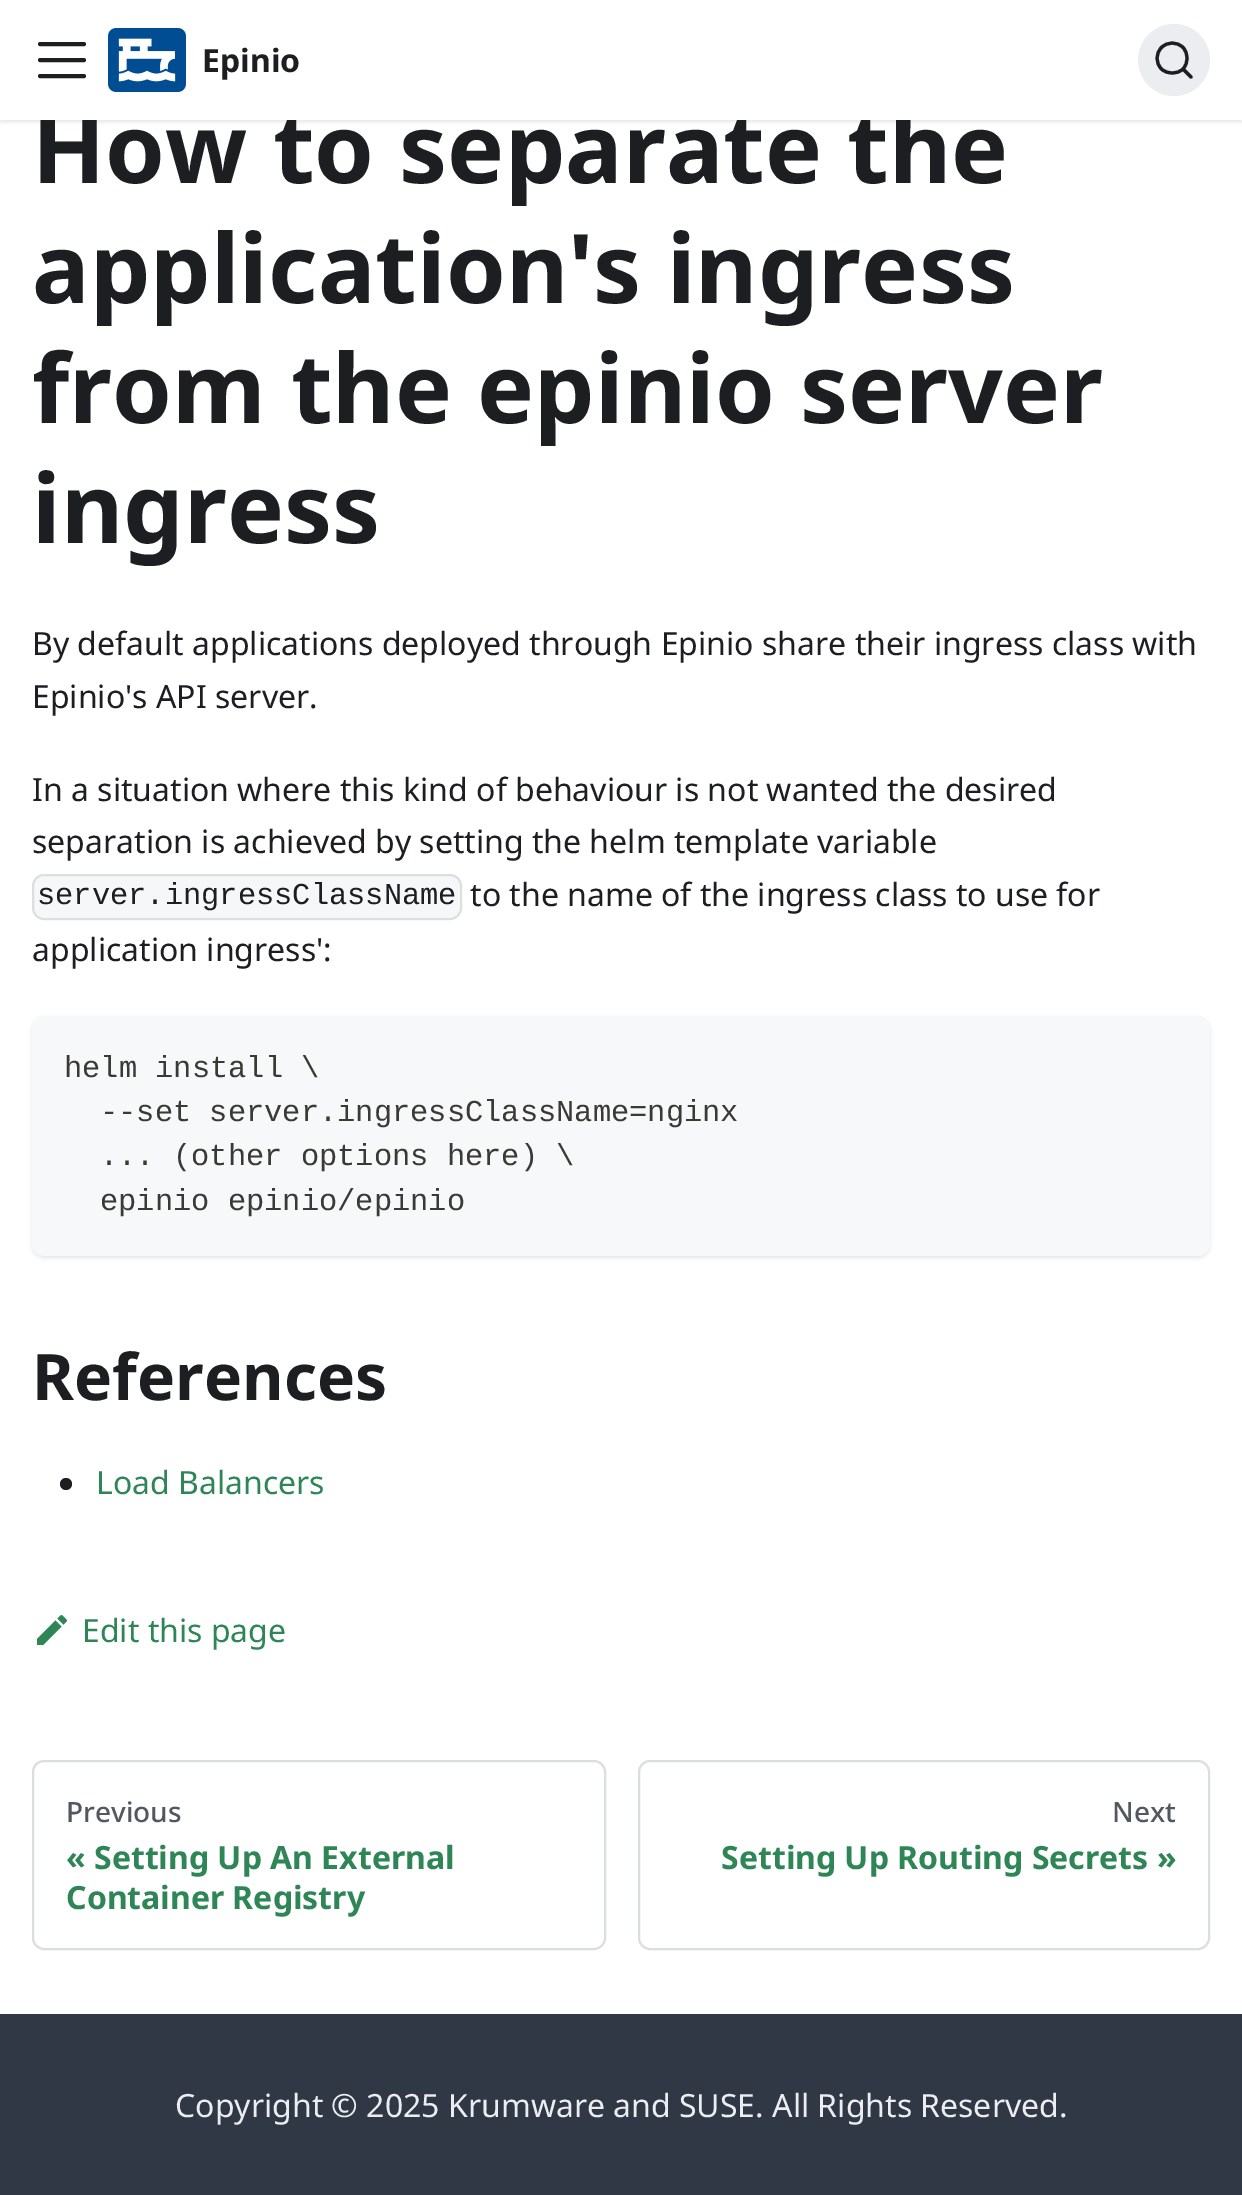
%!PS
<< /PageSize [1242 2195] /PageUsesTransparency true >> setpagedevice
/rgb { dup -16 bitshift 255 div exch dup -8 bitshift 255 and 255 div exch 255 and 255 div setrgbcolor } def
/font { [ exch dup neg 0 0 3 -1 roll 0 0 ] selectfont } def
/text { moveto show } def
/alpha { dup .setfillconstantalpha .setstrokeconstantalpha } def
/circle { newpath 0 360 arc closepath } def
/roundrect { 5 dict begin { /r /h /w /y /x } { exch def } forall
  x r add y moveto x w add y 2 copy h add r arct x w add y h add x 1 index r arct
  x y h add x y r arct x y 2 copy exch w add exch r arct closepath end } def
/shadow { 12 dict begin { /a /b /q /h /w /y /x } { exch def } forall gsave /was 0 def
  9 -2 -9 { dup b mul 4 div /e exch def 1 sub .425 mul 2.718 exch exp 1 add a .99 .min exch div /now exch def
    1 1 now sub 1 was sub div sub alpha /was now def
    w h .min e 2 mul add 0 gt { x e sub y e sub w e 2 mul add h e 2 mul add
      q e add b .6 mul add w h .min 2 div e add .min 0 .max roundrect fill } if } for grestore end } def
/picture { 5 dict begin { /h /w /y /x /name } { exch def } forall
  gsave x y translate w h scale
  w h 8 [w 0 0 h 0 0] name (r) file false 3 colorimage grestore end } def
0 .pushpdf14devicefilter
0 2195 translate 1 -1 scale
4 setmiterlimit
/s1 { /NotoSans-Bold 96 font 16#1C1E21 rgb } def
/s2 { /NotoSans-Bold 32 font 16#1C1E21 rgb } def
/s3 { /NotoSans-Regular 32 font 16#1C1E21 rgb } def
/s4 { /LiberationMono-Regular 30.4 font 16#1C1E21 rgb } def
/s5 { /LiberationMono-Regular 30.4 font 16#393A34 rgb } def
/s6 { /NotoSans-Bold 64 font 16#1C1E21 rgb } def
/s7 { /NotoSans-Regular 32 font 16#2E8555 rgb } def
/s8 { /NotoSans-Medium 28 font 16#525860 rgb } def
/s9 { /NotoSans-Bold 32 font 16#2E8555 rgb } def
/s10 { /NotoSans-Regular 32 font 16#EBEDF0 rgb } def
16#FFFFFF rgb
0 0 1242 2195 rectfill
16#000000 rgb
0 2 1242 120 0 2 0.1 shadow
s1
(How to separate the) 32 183 text
16#FFFFFF rgb
0 0 1242 120 rectfill
16#1C1E21 rgb
4 setlinewidth
1 setlinecap
40 44 moveto 84 44 lineto 40 60 moveto 84 60 lineto 40 76 moveto 84 76 lineto stroke
(pic1.raw) 108 28 78 64 picture
s2
(Epinio) 202 72 text
16#EBEDF0 rgb
1174 60 36 circle fill
16#1C1E21 rgb
3.2 setlinewidth
1 setlinejoin
1183 69 moveto 1191 77 lineto 1183 69 lineto 1177 74.5 1167.5 74.5 1161.5 69 curveto 1155.5 63 1155.5 53.5 1161.5 47.5 curveto 1167.5 41.5 1177 41.5 1183 47.5 curveto 1188.5 53.5 1188.5 63 1183 69 curveto closepath stroke
s1
(application's ingress) 32 303 text
(from the epinio server) 32 423 text
(ingress) 32 543 text
s3
(By default applications deployed through Epinio share their ingress class with) 32 655 text
(Epinio's API server.) 32 708 text
(In a situation where this kind of behaviour is not wanted the desired) 32 801 text
(separation is achieved by setting the helm template variable) 32 853 text
16#F6F7F8 rgb
32 874 430 46 12 roundrect fill
0.1 alpha
16#000000 rgb
2 setlinewidth
0 setlinecap
0 setlinejoin
33 875 428 44 11 roundrect stroke
1 alpha
s4
(server.ingressClassName) 37 904 text
s3
(to the name of the ingress class to use for) 470 906 text
(application ingress':) 32 961 text
16#000000 rgb
32 1018 1178 240 12 2 0.1 shadow
16#F6F8FA rgb
32 1016 1178 240 12 roundrect fill
s5
(helm install \\) 64 1077 text
(--set server.ingressClassName=nginx) 100 1121 text
(... \(other options here\) \\) 100 1165 text
(epinio epinio/epinio) 100 1210 text
s6
(References) 32 1400 text
66 1484 6 circle fill
s7
(Load Balancers) 96 1494 text
(pic2.raw) 37 1615 30 30 picture
(Edit this page) 82 1642 text
16#DADDE1 rgb
33 1761 572 188 11 roundrect stroke
s8
(Previous) 66 1822 text
s9
(« Setting Up An External) 66 1869 text
(Container Registry) 66 1909 text
16#DADDE1 rgb
639 1761 570 188 11 roundrect stroke
s8
(Next) 1112 1822 text
s9
(Setting Up Routing Secrets ») 721 1869 text
16#303846 rgb
0 2014 1242 181 rectfill
s10
(Copyright © 2025 Krumware and SUSE. All Rights Reserved.) 175 2117 text
.poppdf14devicefilter showpage
